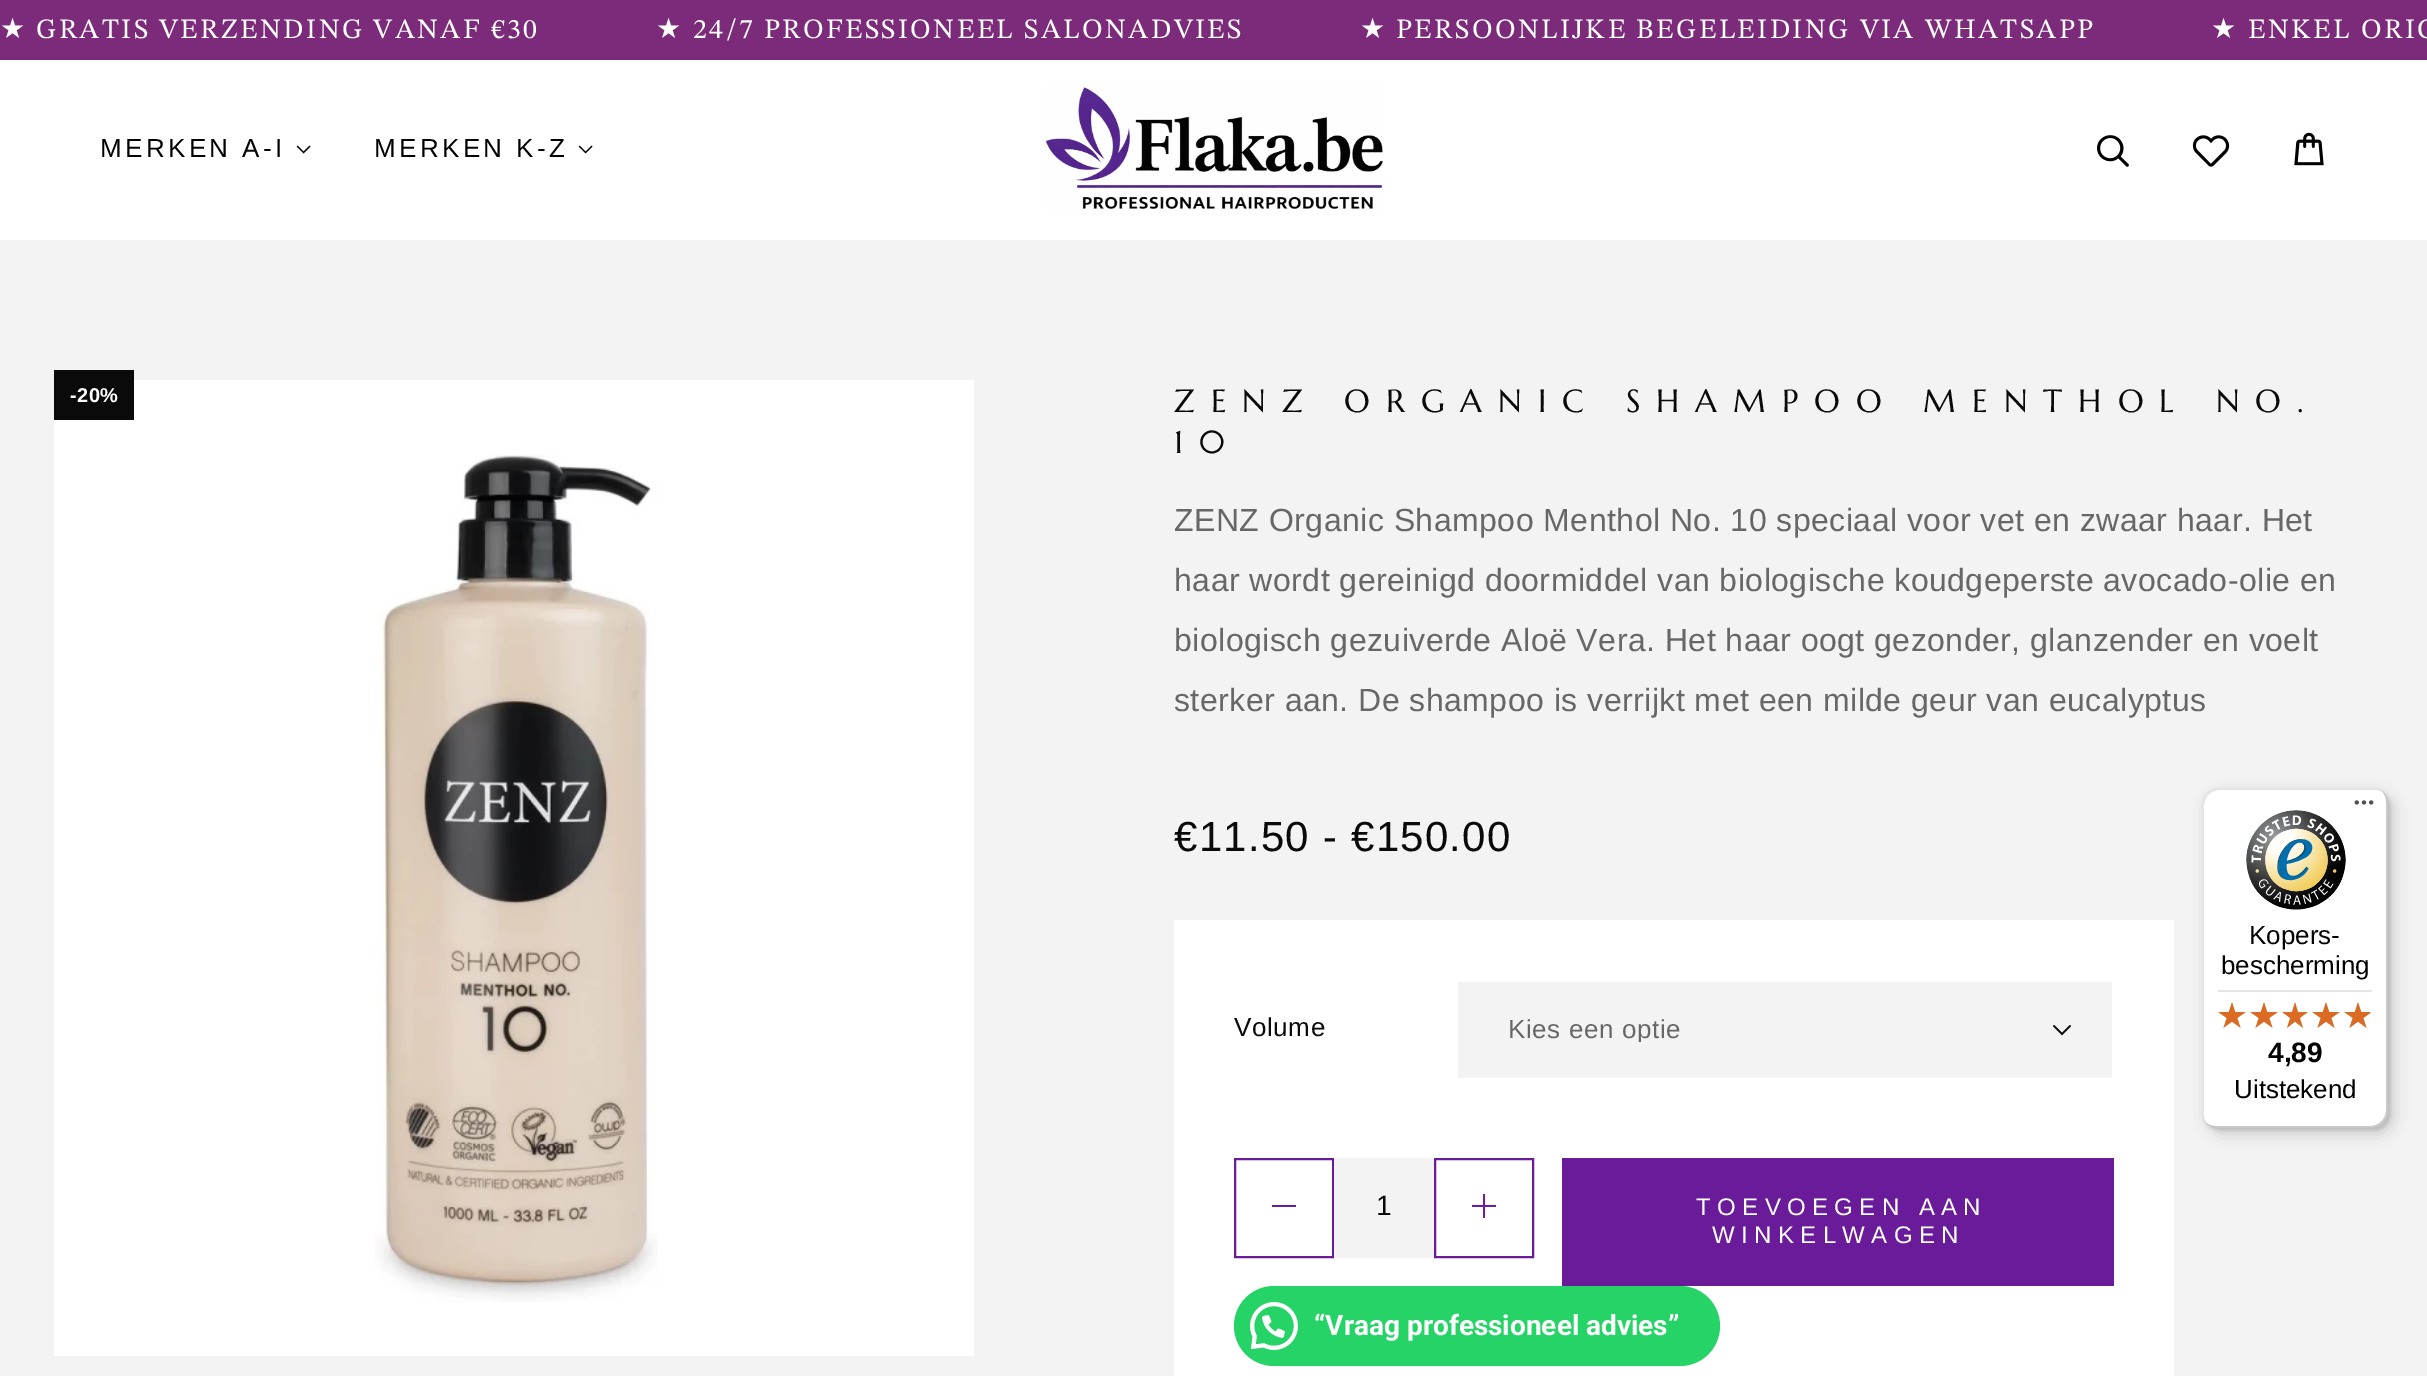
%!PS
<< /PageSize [2427 1376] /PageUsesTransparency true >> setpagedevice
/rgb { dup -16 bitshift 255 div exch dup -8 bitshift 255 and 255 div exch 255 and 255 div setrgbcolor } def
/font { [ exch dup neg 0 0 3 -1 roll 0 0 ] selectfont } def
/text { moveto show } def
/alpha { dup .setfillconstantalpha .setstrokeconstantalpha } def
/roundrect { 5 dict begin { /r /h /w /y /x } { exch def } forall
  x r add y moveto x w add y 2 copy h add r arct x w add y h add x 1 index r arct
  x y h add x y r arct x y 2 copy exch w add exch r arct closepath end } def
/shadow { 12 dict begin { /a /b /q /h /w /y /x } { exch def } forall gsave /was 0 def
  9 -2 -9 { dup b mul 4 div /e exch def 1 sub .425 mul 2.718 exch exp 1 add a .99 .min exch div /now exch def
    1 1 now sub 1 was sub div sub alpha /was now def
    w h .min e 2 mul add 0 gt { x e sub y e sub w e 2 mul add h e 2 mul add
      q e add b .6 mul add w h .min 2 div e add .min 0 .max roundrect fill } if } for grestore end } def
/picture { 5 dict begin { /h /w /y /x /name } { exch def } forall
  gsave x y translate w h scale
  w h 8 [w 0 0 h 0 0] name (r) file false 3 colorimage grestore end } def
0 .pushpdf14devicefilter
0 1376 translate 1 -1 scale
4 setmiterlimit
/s1 { /Roboto-Bold 28 font 16#FFFFFF rgb } def
/s2 { /LiberationSans-Regular 26 font 16#000000 rgb } def
/s3 { /LiberationSans-Bold 28 font 16#000000 rgb } def
16#F3F3F3 rgb
0 0 2427 1376 rectfill
16#7C2B7B rgb
0 0 2427 60 rectfill
/DejaVuSans-Regular 28 font
16#FFFFFF rgb
0 38 moveto 2.4 0 (★) ashow
/STIXTwoText-Regular 28 font
36 38 moveto 2.4 0 (GRATIS VERZENDING VANAF €30) ashow
/DejaVuSans-Regular 28 font
656 38 moveto 2.4 0 (★) ashow
/STIXTwoText-Regular 28 font
693 38 moveto 2.4 0 (24/7 PROFESSIONEEL SALONADVIES) ashow
/DejaVuSans-Regular 28 font
1360 38 moveto 2.4 0 (★) ashow
/STIXTwoText-Regular 28 font
1396 38 moveto 2.4 0 (PERSOONLIJKE BEGELEIDING VIA WHATSAPP) ashow
/DejaVuSans-Regular 28 font
2211 38 moveto 2.4 0 (★) ashow
/STIXTwoText-Regular 28 font
2248 38 moveto 2.4 0 (ENKEL ORIG) ashow
0 60 2427 180 rectfill
/LiberationSans-Regular 26 font
16#000000 rgb
100 157 moveto 3.4 0 (MERKEN A-I) ashow
(pic1.raw) 296 145 15 9 picture
374 157 moveto 3.4 0 (MERKEN K-Z) ashow
(pic1.raw) 578 145 15 9 picture
(pic2.raw) 1045 87 339 122 picture
(pic3.raw) 2097 135 32 32 picture
(pic4.raw) 2192 135 38 32 picture
(pic5.raw) 2294 132 30 34 picture
16#FFFFFF rgb
54 380 920 976 rectfill
(pic6.raw) 374 455 284 847 picture
16#0A0A0A rgb
54 370 80 50 rectfill
/LiberationSans-Bold 20 font
16#FFFFFF rgb
70 402 moveto 0.5 0 (-20%) ashow
/Marcellus-Regular 32 font
16#0A0A0A rgb
1174 412 moveto 16 0 (ZENZ ORGANIC SHAMPOO MENTHOL NO.) ashow
1174 453 moveto 16 0 (10) ashow
/LiberationSans-Regular 32 font
16#676767 rgb
1174 531 moveto 0.48 0 (ZENZ Organic Shampoo Menthol No. 10 speciaal voor vet en zwaar haar. Het) ashow
1174 591 moveto 0.48 0 (haar wordt gereinigd doormiddel van biologische koudgeperste avocado-olie en) ashow
1174 651 moveto 0.48 0 (biologisch gezuiverde Aloë Vera. Het haar oogt gezonder, glanzender en voelt) ashow
1174 711 moveto 0.48 0 (sterker aan. De shampoo is verrijkt met een milde geur van eucalyptus) ashow
/LiberationSans-Regular 42 font
16#0A0A0A rgb
1174 851 moveto 1.25 0 (€11.50 - €150.00) ashow
16#FFFFFF rgb
1174 920 1000 456 rectfill
/LiberationSans-Regular 26 font
16#0A0A0A rgb
1234 1036 moveto 0.6 0 (Volume) ashow
16#F3F3F3 rgb
1458 982 654 96 rectfill
(pic7.raw) 2053 1025 18 11 picture
gsave
1508 1016 534 26 rectclip
16#676767 rgb
1508 1038 moveto 0.6 0 (Kies een optie) ashow
grestore
16#6A1B9A rgb
2 setlinewidth
1235 1159 98 98 rectstroke
1272 1205 24 2 rectfill
16#F3F3F3 rgb
1334 1158 100 100 rectfill
/LiberationSans-Regular 28 font
16#0A0A0A rgb
1376 1215 moveto 1 0 (1) ashow
16#6A1B9A rgb
1435 1159 98 98 rectstroke
(pic8.raw) 1472 1194 24 24 picture
1562 1158 552 128 rectfill
/LiberationSans-Regular 24 font
16#FFFFFF rgb
1696 1215 moveto 6.4 0 (TOEVOEGEN AAN) ashow
1712 1243 moveto 6.4 0 (WINKELWAGEN) ashow
16#25D366 rgb
1234 1286 486 80 40 roundrect fill
(pic9.raw) 1250 1302 48 48 picture
s1
(“Vraag professioneel advies”) 1314 1335 text
16#000000 rgb
2208 794 186 340 16 8 0.15 shadow
2204 790 186 340 16 2 0.15 shadow
16#FFFFFF rgb
2202 788 186 340 16 roundrect fill
0.1 alpha
16#000000 rgb
2220 790 moveto 2374 790 lineto 2378 790 2381 791 2384 793 curveto 2381 790 2377 788 2372 788 curveto 2218 788 lineto 2209 788 2202 795 2202 804 curveto 2202 1112 lineto 2202 1117 2204 1121 2207 1124 curveto 2205 1121 2204 1118 2204 1114 curveto 2204 806 lineto 2204 797 2211 790 2220 790 curveto closepath fill
0.2 alpha
2206 1123 moveto 2209 1126 2213 1128 2218 1128 curveto 2372 1128 lineto 2381 1128 2388 1121 2388 1112 curveto 2388 804 lineto 2388 799 2386 795 2383 792 curveto 2385 795 2386 798 2386 802 curveto 2386 1110 lineto 2386 1119 2379 1126 2370 1126 curveto 2216 1126 lineto 2212 1126 2209 1125 2206 1123 curveto closepath fill
16#323232 rgb
2207 1123 moveto 2210 1126 2214 1128 2218 1128 curveto 2372 1128 lineto 2381 1128 2388 1121 2388 1112 curveto 2388 804 lineto 2388 800 2386 796 2383 793 curveto 2386 796 2387 799 2387 803 curveto 2387 1111 lineto 2387 1120 2380 1127 2371 1127 curveto 2217 1127 lineto 2213 1127 2210 1126 2207 1123 curveto closepath fill
0.3 alpha
16#FFFFFF rgb
2207 1123 moveto 2210 1126 2214 1128 2218 1128 curveto 2372 1128 lineto 2381 1128 2388 1121 2388 1112 curveto 2388 804 lineto 2388 800 2386 796 2383 793 curveto 2386 796 2387 799 2387 803 curveto 2387 1111 lineto 2387 1120 2380 1127 2371 1127 curveto 2217 1127 lineto 2213 1127 2210 1126 2207 1123 curveto closepath fill
1 alpha
(pic10.raw) 2354 800 20 5 picture
(pic11.raw) 2246 810 100 100 picture
s2
(Kopers-) 2249 944 text
(bescherming) 2221 974 text
16#E5E5E5 rgb
2218 990 154 2 rectfill
(pic12.raw) 2218 1002 28 26 picture
(pic12.raw) 2250 1002 28 26 picture
(pic13.raw) 2282 1002 26 26 picture
(pic12.raw) 2312 1002 28 26 picture
(pic12.raw) 2344 1002 28 26 picture
(pic14.raw) 2218 1002 28 26 picture
(pic14.raw) 2250 1002 28 26 picture
(pic15.raw) 2282 1002 26 26 picture
(pic14.raw) 2312 1002 28 26 picture
(pic16.raw) 2344 1002 26 26 picture
s3
(4,89) 2268 1062 text
s2
(Uitstekend) 2234 1098 text
.poppdf14devicefilter showpage
